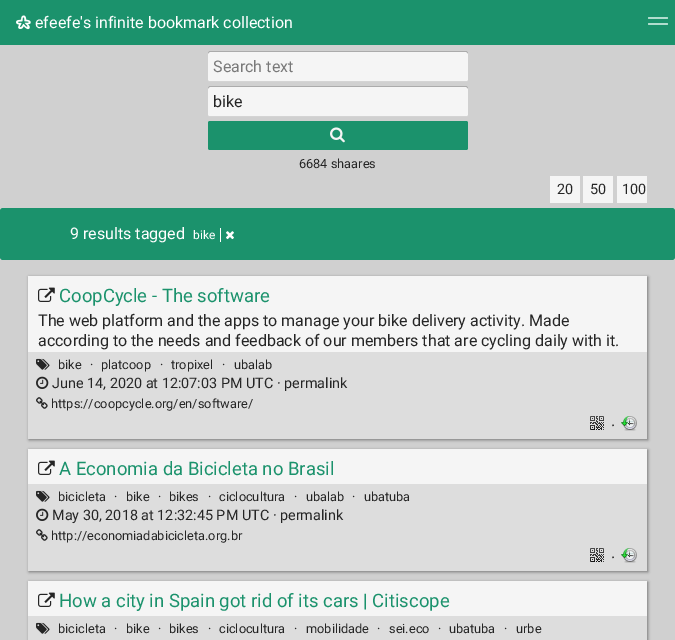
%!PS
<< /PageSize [675 640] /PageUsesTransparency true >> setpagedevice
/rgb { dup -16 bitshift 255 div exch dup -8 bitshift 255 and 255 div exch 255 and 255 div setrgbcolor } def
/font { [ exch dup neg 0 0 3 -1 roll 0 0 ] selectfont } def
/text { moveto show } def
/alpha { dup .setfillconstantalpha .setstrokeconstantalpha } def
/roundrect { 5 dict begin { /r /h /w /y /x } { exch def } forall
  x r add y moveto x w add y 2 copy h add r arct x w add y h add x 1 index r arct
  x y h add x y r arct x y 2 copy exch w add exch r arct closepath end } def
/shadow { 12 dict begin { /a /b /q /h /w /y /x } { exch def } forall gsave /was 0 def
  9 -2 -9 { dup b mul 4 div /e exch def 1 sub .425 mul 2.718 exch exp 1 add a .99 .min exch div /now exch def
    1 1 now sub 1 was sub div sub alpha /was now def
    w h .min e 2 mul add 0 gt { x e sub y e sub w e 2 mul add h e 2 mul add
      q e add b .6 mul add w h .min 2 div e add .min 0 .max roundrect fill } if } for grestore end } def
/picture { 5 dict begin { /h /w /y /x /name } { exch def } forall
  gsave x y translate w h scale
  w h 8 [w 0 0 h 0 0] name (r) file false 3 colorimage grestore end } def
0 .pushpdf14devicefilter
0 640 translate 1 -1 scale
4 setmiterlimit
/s1 { /Roboto-Regular 16 font 16#FFFFFF rgb } def
/s2 { /Roboto-Regular 16 font 16#797979 rgb } def
/s3 { /Roboto-Regular 16 font 16#252525 rgb } def
/s4 { /Roboto-Regular 12.75 font 16#252525 rgb } def
/s5 { /Roboto-Regular 14.4 font 16#252525 rgb } def
/s6 { /Roboto-Regular 12 font 16#FFFFFF rgb } def
/s7 { /Roboto-Regular 18.5 font 16#1B926C rgb } def
16#D0D0D0 rgb
0 0 675 640 rectfill
16#1B926C rgb
0 0 675 45 rectfill
(pic1.raw) 16 15 15 15 picture
s1
(efeefe's infinite bookmark collection) 35 28 text
16#B0DDCE rgb
648 17 20 2 1 roundrect fill
648 23 20 2 1 roundrect fill
16#D4D4D4 rgb
208 79 moveto 208 80 lineto 208 81 209 82 210 82 curveto 466 82 lineto 467 82 468 81 468 80 curveto 468 79 lineto 468 80 467 81 466 81 curveto 210 81 lineto 209 81 208 80 208 79 curveto closepath fill
16#F5F5F5 rgb
208 51 260 30 2 roundrect fill
0.3 alpha
16#000000 rgb
210 52 moveto 466 52 lineto 467 52 468 53 468 54 curveto 468 53 lineto 468 52 467 51 466 51 curveto 210 51 lineto 209 51 208 52 208 53 curveto 208 54 lineto 208 53 209 52 210 52 curveto closepath fill
1 alpha
s2
(Search text) 213 72 text
16#D4D4D4 rgb
208 114 moveto 208 115 lineto 208 116 209 117 210 117 curveto 466 117 lineto 467 117 468 116 468 115 curveto 468 114 lineto 468 115 467 116 466 116 curveto 210 116 lineto 209 116 208 115 208 114 curveto closepath fill
16#F5F5F5 rgb
208 86 260 30 2 roundrect fill
0.3 alpha
16#000000 rgb
210 87 moveto 466 87 lineto 467 87 468 88 468 89 curveto 468 88 lineto 468 87 467 86 466 86 curveto 210 86 lineto 209 86 208 87 208 88 curveto 208 89 lineto 208 88 209 87 210 87 curveto closepath fill
1 alpha
s3
(bike) 213 107 text
16#1B926C rgb
208 121 260 29 2 roundrect fill
(pic2.raw) 330 127 15 16 picture
s4
(6684 shaares) 299 168 text
16#F5F5F5 rgb
550 176 30 27 rectfill
s5
(20) 557 194 text
16#F5F5F5 rgb
583 176 30 27 rectfill
s5
(50) 590 194 text
16#F5F5F5 rgb
617 176 30 27 rectfill
s5
(100) 622 194 text
16#1B926C rgb
0 208 675 52 3 roundrect fill
s1
(9 results tagged) 70 239 text
s6
(bike) 193 239 text
220 228 1 14 rectfill
(pic3.raw) 226 231 8 9 picture
16#797979 rgb
29 277 619 163 0 1.5 1 shadow
16#F5F5F5 rgb
28 276 619 76 rectfill
(pic4.raw) 38 287 17 15 picture
s7
(CoopCycle - The software) 59 302 text
s3
(The web platform and the apps to manage your bike delivery activity. Made) 38 326 text
(according to the needs and feedback of our members that are cycling daily with it.) 38 346 text
16#DDDDDD rgb
28 352 619 87 rectfill
(pic5.raw) 36 358 14 12 picture
s4
(bike) 58 369 text
(·) 90 369 text
(platcoop) 101 369 text
(·) 160 369 text
(tropixel) 171 369 text
(·) 222 369 text
(ubalab) 234 369 text
(pic6.raw) 36 376 13 13 picture
s5
(June 14, 2020 at 12:07:03 PM UTC · permalink) 52 388 text
(pic7.raw) 36 397 12 12 picture
s4
(https://coopcycle.org/en/software/) 51 408 text
(pic8.raw) 590 416 14 14 picture
s3
(·) 611 431 text
(pic9.raw) 621 416 16 15 picture
16#797979 rgb
29 450 619 122 0 1.5 1 shadow
16#F5F5F5 rgb
28 449 619 35 rectfill
(pic4.raw) 38 460 17 15 picture
s7
(A Economia da Bicicleta no Brasil) 59 475 text
16#DDDDDD rgb
28 484 619 87 rectfill
(pic5.raw) 36 490 14 12 picture
s4
(bicicleta) 58 501 text
(·) 114 501 text
(bike) 126 501 text
(·) 158 501 text
(bikes) 169 501 text
(·) 208 501 text
(ciclocultura) 219 501 text
(·) 294 501 text
(ubalab) 306 501 text
(·) 352 501 text
(ubatuba) 364 501 text
(pic6.raw) 36 508 13 13 picture
s5
(May 30, 2018 at 12:32:45 PM UTC · permalink) 52 520 text
(pic7.raw) 36 529 12 12 picture
s4
(http://economiadabicicleta.org.br) 51 540 text
(pic8.raw) 590 548 14 14 picture
s3
(·) 611 563 text
(pic9.raw) 621 548 16 15 picture
16#797979 rgb
29 582 619 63 0 1.5 1 shadow
16#F5F5F5 rgb
28 581 619 35 rectfill
(pic4.raw) 38 592 17 15 picture
s7
(How a city in Spain got rid of its cars | Citiscope) 59 607 text
16#DDDDDD rgb
28 616 619 24 rectfill
(pic5.raw) 36 622 14 12 picture
s4
(bicicleta) 58 633 text
(·) 114 633 text
(bike) 126 633 text
(·) 158 633 text
(bikes) 169 633 text
(·) 208 633 text
(ciclocultura) 219 633 text
(·) 294 633 text
(mobilidade) 306 633 text
(·) 377 633 text
(sei.eco) 389 633 text
(·) 438 633 text
(ubatuba) 449 633 text
(·) 504 633 text
(urbe) 516 633 text
.poppdf14devicefilter showpage
